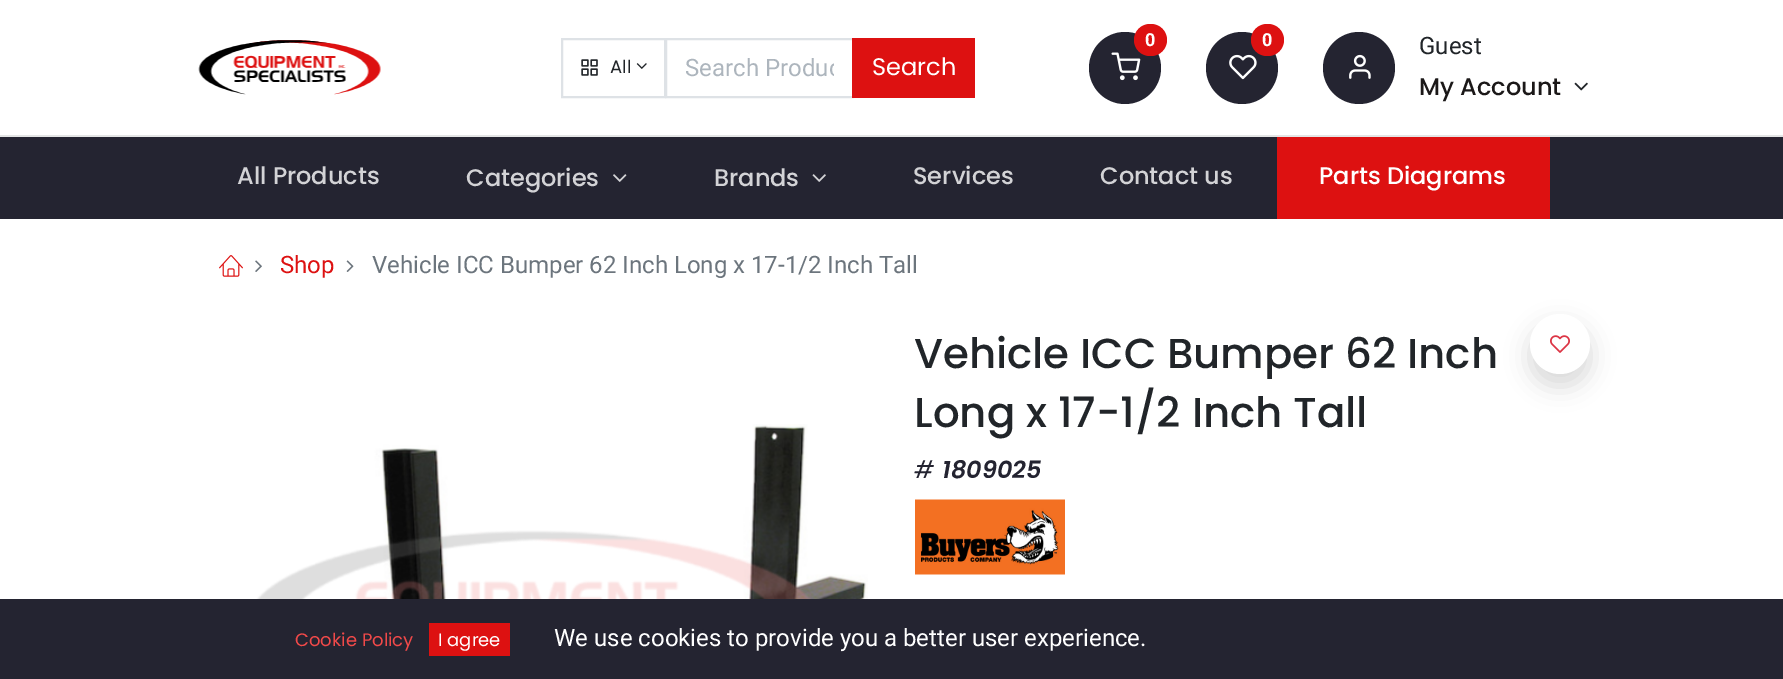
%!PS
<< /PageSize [1783 679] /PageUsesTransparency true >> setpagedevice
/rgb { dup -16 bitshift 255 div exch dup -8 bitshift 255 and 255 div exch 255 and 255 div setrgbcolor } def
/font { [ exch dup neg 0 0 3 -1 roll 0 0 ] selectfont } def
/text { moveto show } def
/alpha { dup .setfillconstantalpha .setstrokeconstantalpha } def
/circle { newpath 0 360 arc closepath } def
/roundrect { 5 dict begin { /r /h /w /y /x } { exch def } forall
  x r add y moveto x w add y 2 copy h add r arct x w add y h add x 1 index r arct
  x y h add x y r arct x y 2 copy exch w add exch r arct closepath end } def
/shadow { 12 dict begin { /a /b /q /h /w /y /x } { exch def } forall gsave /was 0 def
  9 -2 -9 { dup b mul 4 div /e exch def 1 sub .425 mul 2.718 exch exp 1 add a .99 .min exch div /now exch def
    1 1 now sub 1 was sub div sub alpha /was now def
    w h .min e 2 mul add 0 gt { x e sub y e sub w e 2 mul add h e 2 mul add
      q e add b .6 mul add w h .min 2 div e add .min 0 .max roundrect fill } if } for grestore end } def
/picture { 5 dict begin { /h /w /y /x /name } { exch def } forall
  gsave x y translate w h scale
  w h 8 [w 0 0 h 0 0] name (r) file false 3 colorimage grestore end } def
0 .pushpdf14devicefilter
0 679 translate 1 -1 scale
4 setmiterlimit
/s1 { /Poppins-Regular 18 font 16#212529 rgb } def
/s2 { /Roboto-Regular 24 font 16#ADB5BD rgb } def
/s3 { /Poppins-Regular 24 font 16#FFFFFF rgb } def
/s4 { /Roboto-Bold 18 font 16#FFFFFF rgb } def
/s5 { /Roboto-Regular 24 font 16#212529 rgb } def
/s6 { /Poppins-Medium 24 font 16#1B1818 rgb } def
/s7 { /Poppins-Medium 24 font 16#D3D3D6 rgb } def
/s8 { /Poppins-Medium 24 font 16#FFFFFF rgb } def
/s9 { /Roboto-Regular 24 font 16#DD1111 rgb } def
/s10 { /Roboto-Regular 24 font 16#6C757D rgb } def
/s11 { /Poppins-Medium 41.9 font 16#212529 rgb } def
/s12 { /Poppins-Italic 24 font 16#242431 rgb } def
/s13 { /Poppins-SemiBoldItalic 24 font 16#242431 rgb } def
/s14 { /Poppins-Regular 18 font 16#F14949 rgb } def
/s15 { /Poppins-Regular 18 font 16#FFFFFF rgb } def
/s16 { /Roboto-Regular 24 font 16#FFFFFF rgb } def
16#FFFFFF rgb
0 0 1783 679 rectfill
16#E4E5E5 rgb
0 135 1783 2 rectfill
(pic1.raw) 198 40 183 55 picture
16#DEE2E6 rgb
2 setlinewidth
666 39 187 58 rectstroke
562 39 103 58 rectstroke
(pic2.raw) 581 59 17 17 picture
s1
(All) 610 73 text
(pic3.raw) 636 63 11 6 picture
gsave
684 53 150 28 rectclip
s2
(Search Produc) 685 76 text
grestore
16#DD1111 rgb
852 38 123 60 rectfill
s3
(Search) 872 75 text
16#242431 rgb
1125 68 36 circle fill
(pic4.raw) 1111 52 30 29 picture
16#DD1111 rgb
1134 24 33 32 16 roundrect fill
s4
(0) 1145 46 text
16#242431 rgb
1242 68 36 circle fill
(pic5.raw) 1229 54 28 26 picture
16#DD1111 rgb
1251 24 33 32 16 roundrect fill
s4
(0) 1262 46 text
16#242431 rgb
1359 68 36 circle fill
(pic6.raw) 1349 54 22 25 picture
s5
(Guest) 1419 54 text
s6
(My Account) 1419 95 text
(pic7.raw) 1574 82 14 9 picture
16#242431 rgb
0 137 1783 82 rectfill
s7
(All Products) 237 184 text
(Categories) 466 186 text
(pic8.raw) 613 174 14 8 picture
(Brands) 714 186 text
(pic9.raw) 812 174 14 8 picture
(Services) 913 184 text
(Contact us) 1100 184 text
16#DD1111 rgb
1277 137 273 82 rectfill
s8
(Parts Diagrams) 1319 184 text
(pic10.raw) 219 255 24 22 picture
(pic11.raw) 255 260 7 12 picture
s9
(Shop) 280 273 text
(pic12.raw) 346 260 8 12 picture
s10
(Vehicle ICC Bumper 62 Inch Long x 17-1/2 Inch Tall) 372 273 text
s11
(Vehicle ICC Bumper 62 Inch) 914 368 text
(Long x 17-1/2 Inch Tall) 914 427 text
16#000000 rgb
1530 326 60 60 30 12 0.15 shadow
16#FFFFFF rgb
1560 344 30 circle fill
(pic13.raw) 1550 335 20 18 picture
s12
(#) 914 478 text
s13
(1809025) 942 478 text
(pic14.raw) 915 499 150 76 picture
(pic15.raw) 246 424 622 175 picture
0 599 1783 80 rectfill
s14
(Cookie Policy) 295 646 text
16#DD1111 rgb
429 623 81 33 rectfill
s15
(I agree) 438 646 text
s16
(We use cookies to provide you a better user experience.) 554 646 text
.poppdf14devicefilter showpage
